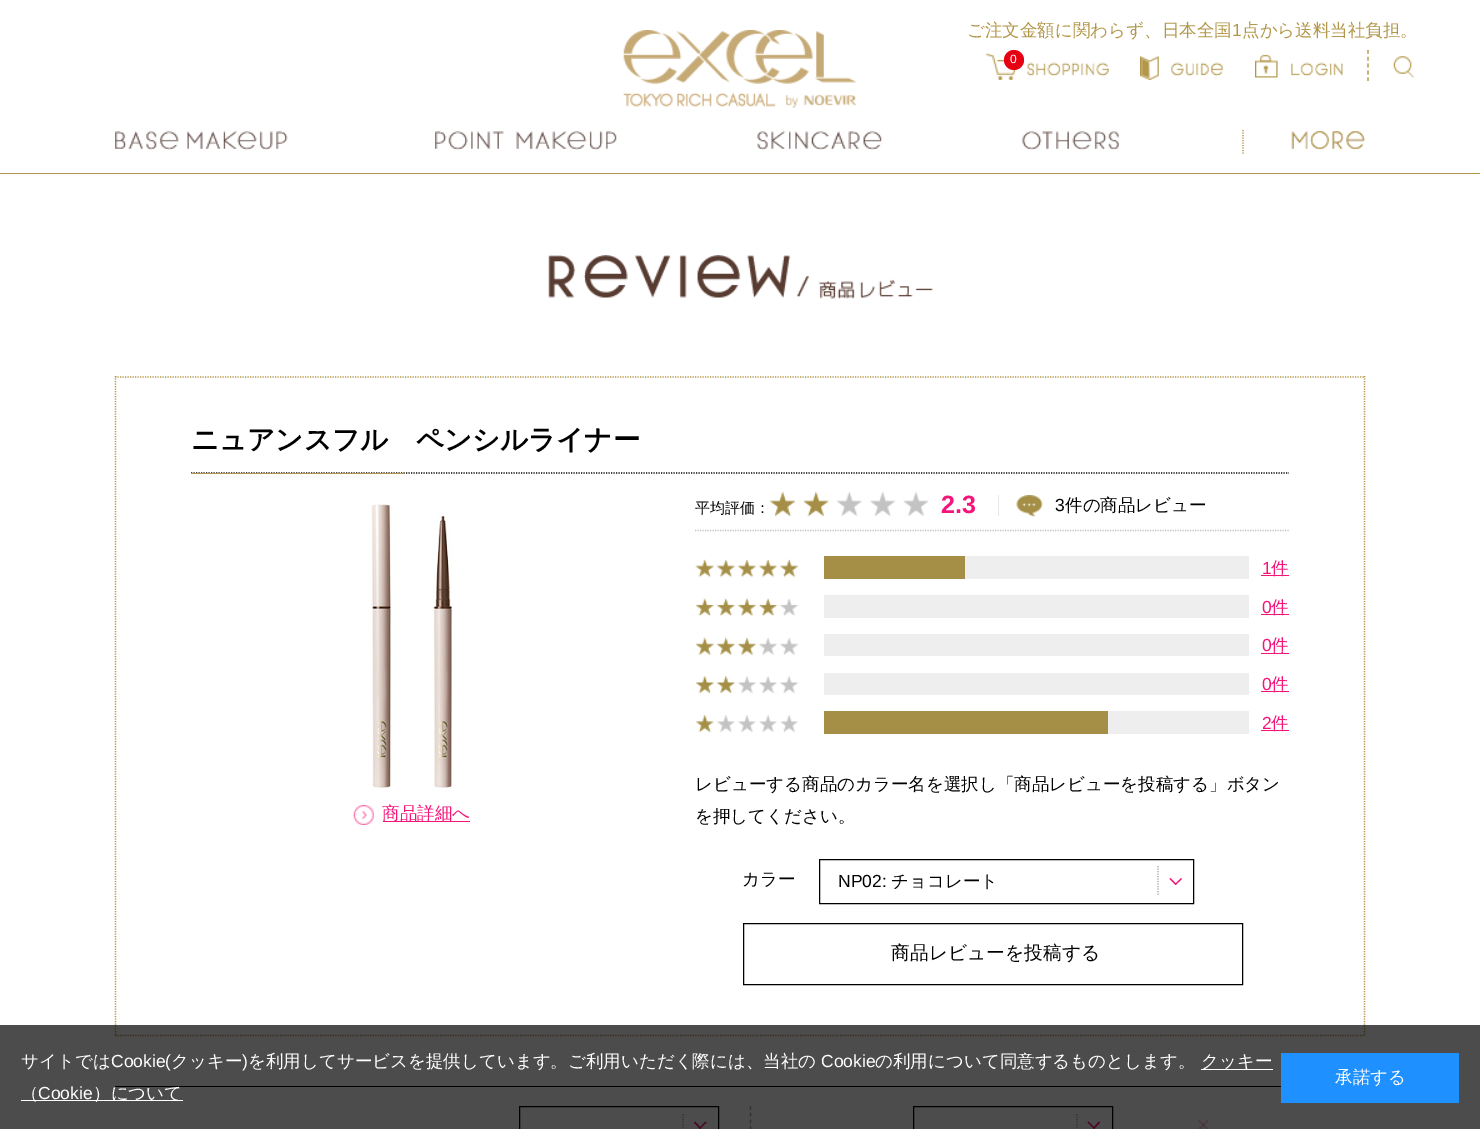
%!PS
<< /PageSize [1480 1129] /PageUsesTransparency true >> setpagedevice
/rgb { dup -16 bitshift 255 div exch dup -8 bitshift 255 and 255 div exch 255 and 255 div setrgbcolor } def
/font { [ exch dup neg 0 0 3 -1 roll 0 0 ] selectfont } def
/text { moveto show } def
/alpha { dup .setfillconstantalpha .setstrokeconstantalpha } def
/circle { newpath 0 360 arc closepath } def
/picture { 5 dict begin { /h /w /y /x /name } { exch def } forall
  gsave x y translate w h scale
  w h 8 [w 0 0 h 0 0] name (r) file false 3 colorimage grestore end } def
0 .pushpdf14devicefilter
0 1129 translate 1 -1 scale
4 setmiterlimit
/s1 { /WenQuanYiZenHei-Medium 17.5 font 16#B29649 rgb } def
/s2 { /LiberationSans-Regular 17.5 font 16#B29649 rgb } def
/s3 { /LiberationSans-Regular 12 font 16#FFFFFF rgb } def
/s4 { /WenQuanYiZenHei-Bold 27.5 font 16#000000 rgb } def
/s5 { /WenQuanYiZenHei-Medium 17.5 font 16#F5157A rgb } def
/s6 { /WenQuanYiZenHei-Medium 15 font 16#000000 rgb } def
/s7 { /LiberationSans-Bold 25 font 16#F5157A rgb } def
/s8 { /LiberationSans-Regular 17.5 font 16#000000 rgb } def
/s9 { /WenQuanYiZenHei-Medium 17.5 font 16#000000 rgb } def
/s10 { /LiberationSans-Regular 17.5 font 16#F5157A rgb } def
/s11 { /WenQuanYiZenHei-Medium 18.75 font 16#000000 rgb } def
/s12 { /WenQuanYiZenHei-Medium 17.5 font 16#FFFFFF rgb } def
/s13 { /LiberationSans-Regular 17.5 font 16#FFFFFF rgb } def
16#FFFFFF rgb
0 0 1480 1129 rectfill
16#B29649 rgb
0 173 1480 1 rectfill
(pic1.raw) 623 30 234 78 picture
s1
(ご注文金額に関わらず、日本全国) 967 36 text
s2
(1) 1232 36 text
s1
(点から送料当社負担。) 1242 36 text
(pic2.raw) 986 53 123 27 picture
16#E60012 rgb
1014 60 10 circle fill
s3
(0) 1010 63 text
(pic3.raw) 1140 56 84 24 picture
(pic4.raw) 1255 54 88 24 picture
16#B29649 rgb
1.2 setlinewidth
[3.75 3.12] 0 setdash
1368 50 moveto 1368 81 lineto stroke
(pic5.raw) 1393 56 21 22 picture
(pic6.raw) 115 131 173 19 picture
(pic7.raw) 435 131 182 19 picture
(pic8.raw) 757 131 125 19 picture
(pic9.raw) 1022 131 97 19 picture
[1.25 1.25] 0 setdash
1243 130 moveto 1243 154 lineto stroke
(pic10.raw) 1291 131 74 19 picture
(pic11.raw) 548 255 385 44 picture
115 377 moveto 1365 377 lineto stroke
1364.5 376 moveto 1364.5 1036 lineto stroke
115 1035.5 moveto 1365 1035.5 lineto stroke
115.5 376 moveto 115.5 1036 lineto stroke
16#000000 rgb
191 473 moveto 1289 473 lineto stroke
s4
(ニュアンスフル　ペンシルライナー) 191 449 text
16#B29649 rgb
191 473 213 1 rectfill
(pic12.raw) 371 504 81 285 picture
(pic13.raw) 353 805 21 20 picture
16#F5157A rgb
383 821 87 1 rectfill
s5
(商品詳細へ) 382 819 text
s6
(平均評価：) 695 513 text
(pic14.raw) 770 491 159 26 picture
s7
(2.3) 941 513 text
16#E7E7E7 rgb
998 495 1 21 rectfill
(pic15.raw) 1016 495 27 22 picture
s8
(3) 1055 511 text
s9
(件の商品レビュー) 1065 511 text
16#C3C3C3 rgb
695 530.5 moveto 1289 530.5 lineto stroke
(pic16.raw) 695 559 104 19 picture
16#EEEEEE rgb
965 556 284 23 rectfill
16#A58F47 rgb
824 556 141 23 rectfill
s10
(1) 1262 574 text
1261 575 28 1 rectfill
s5
(件) 1271 574 text
(pic17.raw) 695 598 103 19 picture
16#EEEEEE rgb
824 595 425 23 rectfill
s10
(0) 1262 613 text
1261 614 28 1 rectfill
s5
(件) 1271 613 text
(pic18.raw) 695 637 104 18 picture
16#EEEEEE rgb
824 634 425 22 rectfill
s10
(0) 1262 651 text
1261 653 28 1 rectfill
s5
(件) 1271 651 text
(pic19.raw) 695 676 103 18 picture
16#EEEEEE rgb
824 673 425 22 rectfill
s10
(0) 1262 690 text
1261 691 28 1 rectfill
s5
(件) 1271 690 text
(pic20.raw) 695 715 103 18 picture
16#EEEEEE rgb
1108 711 141 23 rectfill
16#A58F47 rgb
824 711 284 23 rectfill
s10
(2) 1262 729 text
1261 730 28 1 rectfill
s5
(件) 1271 729 text
s9
(レビューする商品のカラー名を選択し「商品レビューを投稿する」ボタン) 695 790 text
(を押してください。) 695 822 text
(カラー) 742 885 text
1 setlinewidth
[] 0 setdash
819.5 859.5 374 44 rectstroke
s8
(NP02:) 838 887 text
s9
(チョコレート) 891 887 text
16#AAAAAA rgb
1.2 setlinewidth
[1.25 1.25] 0 setdash
1158 866 moveto 1158 896 lineto stroke
16#F5157A rgb
1181 878 moveto 1182 879 lineto 1175.5 885 lineto 1175 884 lineto closepath fill
1170.5 878 moveto 1176.5 884 lineto 1175.5 885 lineto 1169.5 879 lineto closepath fill
16#000000 rgb
1 setlinewidth
[] 0 setdash
743.5 923.5 499 61 rectstroke
s11
(商品レビューを投稿する) 891 959 text
115 1086 1166 1 rectfill
16#AAAAAA rgb
1.2 setlinewidth
[3.75 3] 0 setdash
750.5 1106 moveto 750.5 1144 lineto stroke
16#000000 rgb
1 setlinewidth
[] 0 setdash
519.5 1106.5 199 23 rectstroke
16#AAAAAA rgb
1.2 setlinewidth
[1.25 1.25] 0 setdash
683 1114 moveto 683 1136 lineto stroke
16#F5157A rgb
705.5 1121.5 moveto 706.5 1122.5 lineto 700 1129 lineto 699.5 1128 lineto closepath fill
695 1121.5 moveto 701 1128 lineto 700 1129 lineto 694 1122.5 lineto closepath fill
16#000000 rgb
1 setlinewidth
[] 0 setdash
913.5 1106.5 199 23 rectstroke
16#AAAAAA rgb
1.2 setlinewidth
[1.25 1.25] 0 setdash
1077 1114 moveto 1077 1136 lineto stroke
16#F5157A rgb
1099 1121.5 moveto 1100 1122.5 lineto 1094 1129 lineto 1093 1128 lineto closepath fill
1088.5 1121.5 moveto 1095 1128 lineto 1094 1129 lineto 1087.5 1122.5 lineto closepath fill
(pic21.raw) 1197 1120 12 9 picture
0.7 alpha
16#000000 rgb
0 1025 1480 104 rectfill
1 alpha
s12
(サイトでは) 21 1067 text
s13
(Cookie\() 111 1067 text
s12
(クッキー) 171 1067 text
s13
(\)) 242 1067 text
s12
(を利用してサービスを提供しています。ご利用いただく際には、当社の) 248 1067 text
s13
(Cookie) 821 1067 text
s12
(の利用について同意するものとします。) 875 1067 text
1201 1069 72 1 rectfill
(クッキー) 1201 1067 text
21 1100 162 1 rectfill
(（) 21 1099 text
s13
(Cookie) 38 1099 text
s12
(）について) 93 1099 text
16#1E90FF rgb
1281 1053 178 50 rectfill
s12
(承諾する) 1335 1083 text
.poppdf14devicefilter showpage
